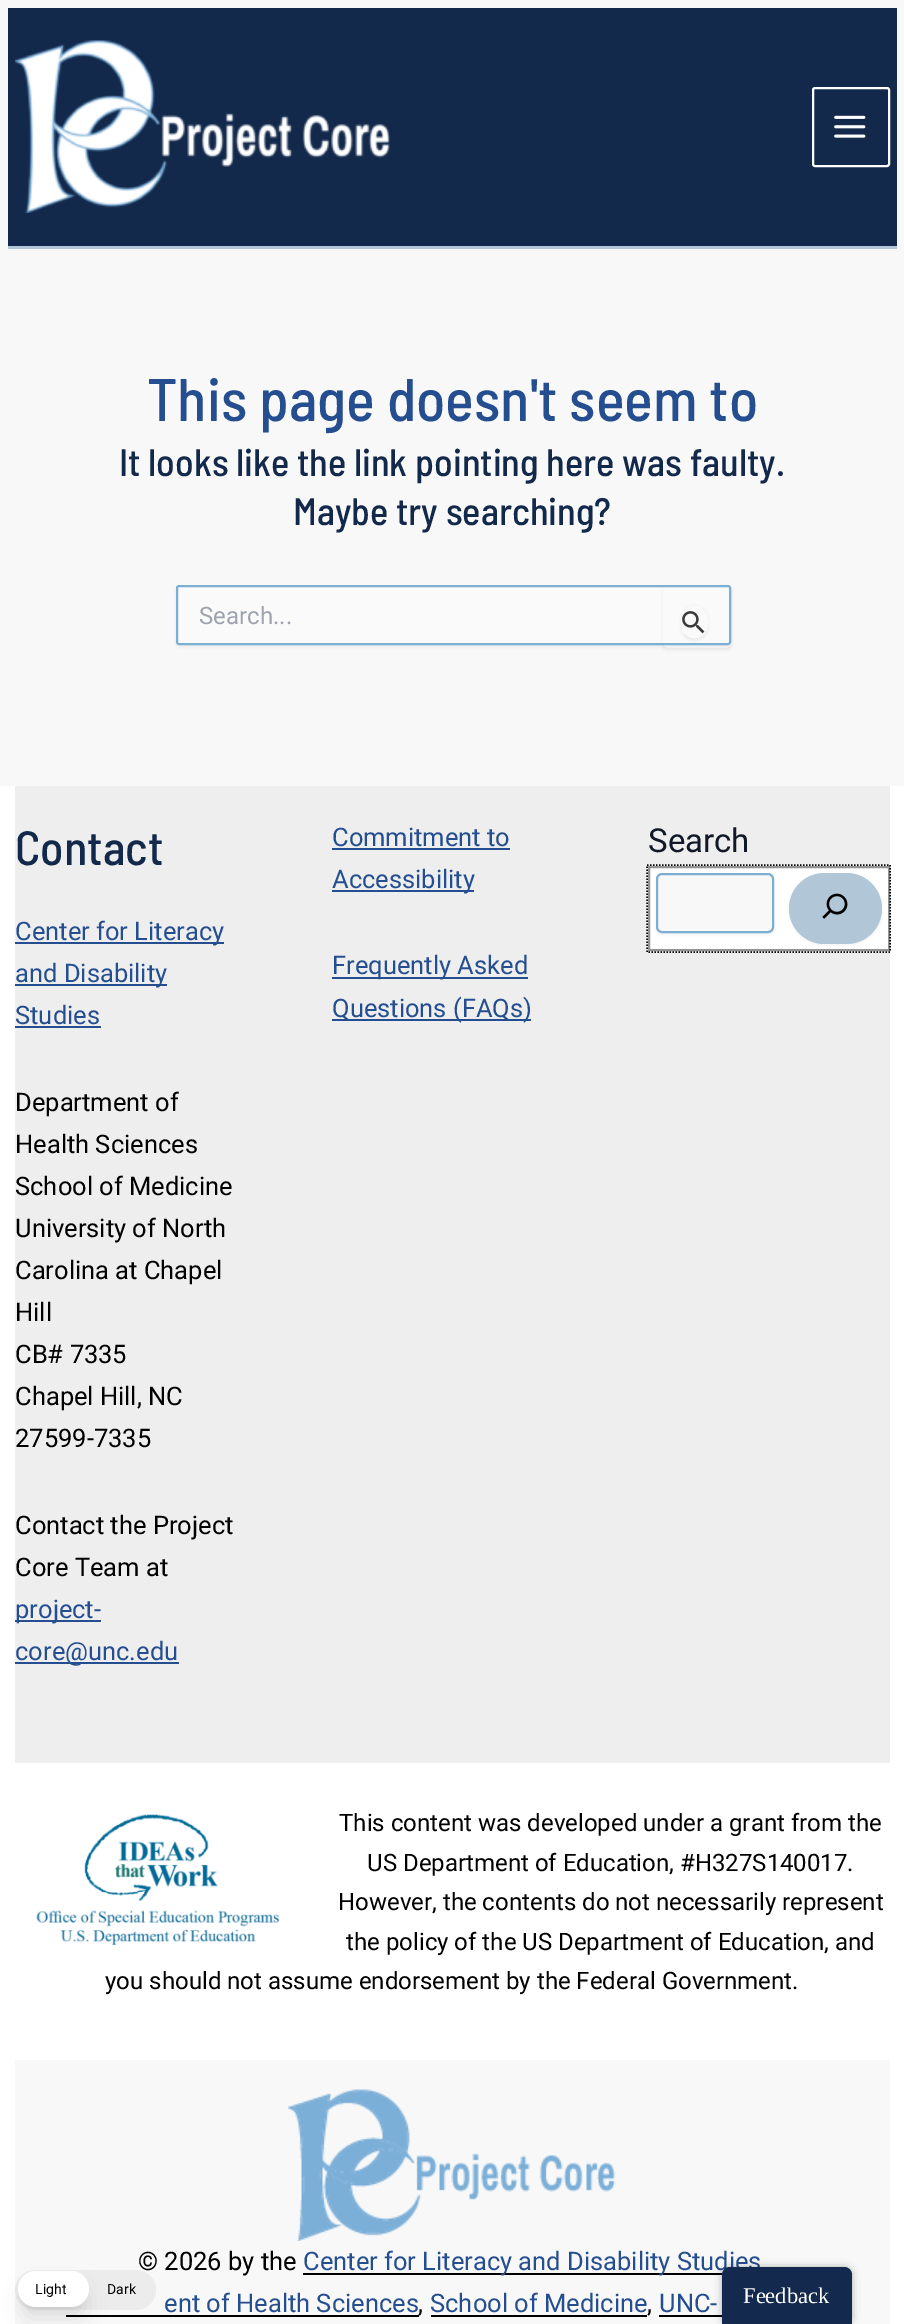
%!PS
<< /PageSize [904 2324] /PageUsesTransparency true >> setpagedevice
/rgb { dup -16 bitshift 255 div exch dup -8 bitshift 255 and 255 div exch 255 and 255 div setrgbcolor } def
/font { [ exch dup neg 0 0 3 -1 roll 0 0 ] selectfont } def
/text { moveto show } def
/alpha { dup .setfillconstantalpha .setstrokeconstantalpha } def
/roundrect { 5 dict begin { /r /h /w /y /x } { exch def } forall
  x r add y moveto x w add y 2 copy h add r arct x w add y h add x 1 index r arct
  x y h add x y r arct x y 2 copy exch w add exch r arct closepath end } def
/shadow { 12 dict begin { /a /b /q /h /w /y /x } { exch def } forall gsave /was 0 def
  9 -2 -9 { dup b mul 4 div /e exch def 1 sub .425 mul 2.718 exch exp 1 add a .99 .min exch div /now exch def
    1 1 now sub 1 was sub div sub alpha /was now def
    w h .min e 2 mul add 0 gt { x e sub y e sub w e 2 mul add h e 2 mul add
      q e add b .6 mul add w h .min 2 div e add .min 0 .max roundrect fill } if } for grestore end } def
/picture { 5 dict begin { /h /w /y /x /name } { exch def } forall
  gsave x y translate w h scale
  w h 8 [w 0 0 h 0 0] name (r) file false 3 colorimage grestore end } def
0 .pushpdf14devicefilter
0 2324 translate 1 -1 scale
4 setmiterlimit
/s1 { /BarlowSemiCondensed-Medium 60 font 16#244E8F rgb } def
/s2 { /BarlowSemiCondensed-Medium 38.25 font 16#13294B rgb } def
/s3 { /Roboto-Regular 24 font 16#9CA3AF rgb } def
/s4 { /BarlowSemiCondensed-Medium 48 font 16#13294B rgb } def
/s5 { /Roboto-Regular 25.5 font 16#244E8F rgb } def
/s6 { /Roboto-Regular 25.5 font 16#000000 rgb } def
/s7 { /Roboto-Regular 33 font 16#111827 rgb } def
/s8 { /Roboto-Regular 24 font 16#000000 rgb } def
/s9 { /Roboto-Regular 14 font 16#000000 rgb } def
/s10 { /LiberationSerif-Regular 22.5 font 16#FFFFFF rgb } def
16#F8F8F8 rgb
0 0 904 2324 rectfill
16#13294B rgb
8 8 889 238 rectfill
16#B1C7D7 rgb
8 246 889 3 rectfill
(pic1.raw) 15 40 375 173 picture
16#FFFFFF rgb
2 setlinewidth
813 88 76 78 2 roundrect stroke
(pic2.raw) 834 115 32 23 picture
s1
(This page doesn't seem to) 147 421 text
s2
(It looks like the link pointing here was faulty.) 119 476 text
(Maybe try searching?) 293 525 text
16#000000 rgb
176 587 555 60 3 1.5 0.05 shadow
16#FAFAFA rgb
177 586 553 58 2 roundrect gsave fill grestore
16#7BAFD4 rgb
stroke
s3
(Search...) 199 624 text
gsave
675 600 moveto 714 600 lineto 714 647 lineto 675 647 lineto closepath 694.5 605 moveto 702 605 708 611 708 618.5 curveto 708 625.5 lineto 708 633 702 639 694.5 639 curveto 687 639 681 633 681 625.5 curveto 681 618.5 lineto 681 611 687 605 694.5 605 curveto closepath eoclip newpath
16#000000 rgb
681 606 27 35 13.5 1.5 0.05 shadow
grestore
(pic3.raw) 682 611 23 23 picture
gsave
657 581 moveto 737 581 lineto 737 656 lineto 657 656 lineto closepath 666 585 moveto 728 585 lineto 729.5 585 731 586.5 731 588 curveto 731 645 lineto 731 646.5 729.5 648 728 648 curveto 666 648 lineto 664.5 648 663 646.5 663 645 curveto 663 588 lineto 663 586.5 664.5 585 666 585 curveto closepath eoclip newpath
16#000000 rgb
663 587 68 63 3 1.5 0.05 shadow
grestore
16#FFFFFF rgb
0 786 904 1538 rectfill
16#EEEEEE rgb
15 786 875 977 rectfill
s4
(Contact) 15 865 text
16#244E8F rgb
15 942 209 2 rectfill
s5
(Center for Literacy) 15 940 text
15 984 152 2 rectfill
(and Disability) 15 982 text
(Studies) 15 1024 text
15 1026 86 2 rectfill
s6
(Department of) 15 1111 text
(Health Sciences) 15 1153 text
(School of Medicine) 15 1195 text
(University of North) 15 1237 text
(Carolina at Chapel) 15 1279 text
(Hill) 15 1321 text
(CB# 7335) 15 1363 text
(Chapel Hill, NC) 15 1405 text
(27599-7335) 15 1447 text
(Contact the Project) 15 1534 text
(Core Team at) 15 1576 text
16#244E8F rgb
15 1620 86 2 rectfill
(project-) 15 1618 text
15 1662 164 2 rectfill
(core@unc.edu) 15 1660 text
(Commitment to) 332 846 text
332 848 178 2 rectfill
332 890 142 2 rectfill
(Accessibility) 332 888 text
332 977 196 2 rectfill
(Frequently Asked) 332 974 text
332 1019 199 2 rectfill
(Questions \(FAQs\)) 332 1017 text
s7
(Search) 648 852 text
16#FFFFFF rgb
649 867 moveto 889 867 lineto 889 950 lineto 649 950 lineto closepath gsave fill grestore
16#949494 rgb
stroke
16#000000 rgb
656 875 118 60 6 1.5 0.05 shadow
16#F8F8F8 rgb
657 874 116 58 5 roundrect gsave fill grestore
16#7BAFD4 rgb
stroke
16#000000 rgb
789 875 93 70 35 1.5 0.05 shadow
16#B1C7D7 rgb
789 873 93 71 35.5 roundrect fill
16#000000 rgb
1.5 setlinewidth
[1.5 1.5] 0 setdash
647 865 moveto 890 865 lineto 890 952 lineto 647 952 lineto closepath stroke
(pic4.raw) 822 893 26 26 picture
s8
(This content was developed under a grant from the) 339 1831 text
(US Department of Education, #H327S140017.) 367 1871 text
(However, the contents do not necessarily represent) 338 1910 text
(the policy of the US Department of Education, and) 346 1950 text
(you should not assume endorsement by the Federal Government.) 105 1989 text
(pic5.raw) 36 1814 244 131 picture
16#F8F8F8 rgb
15 2060 875 264 rectfill
(pic6.raw) 288 2089 328 152 picture
s6
(© 2026 by the) 138 2270 text
303 2273 420 2 rectfill
s5
(Center for Literacy and Disability Studies) 303 2270 text
(ent of Health Sciences) 164 2312 text
16#000000 rgb
66 2315 353 2 rectfill
(,) 418 2312 text
s5
(School of Medicine) 430 2312 text
s6
(,) 647 2312 text
431 2315 216 2 rectfill
659 2315 63 2 rectfill
s5
(UNC-) 659 2312 text
16#ECECEC rgb
15 2270 141 40 20 roundrect fill
16#000000 rgb
24 2283 59 24 12 4.5 0.1 shadow
23 2291 61 27 13.5 11 0.1 shadow
16#FFFFFF rgb
18 2271 71 36 18 roundrect fill
s9
(Light) 35 2294 text
(Dark) 107 2294 text
722 2267 130 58 8 4 0.3 shadow
16#13294D rgb
730 2267 moveto 844 2267 lineto 848.5 2267 852 2270.5 852 2275 curveto 852 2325 lineto 722 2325 lineto 722 2275 lineto 722 2270.5 725.5 2267 730 2267 curveto closepath fill
s10
(Feedback) 743 2303 text
.poppdf14devicefilter showpage
